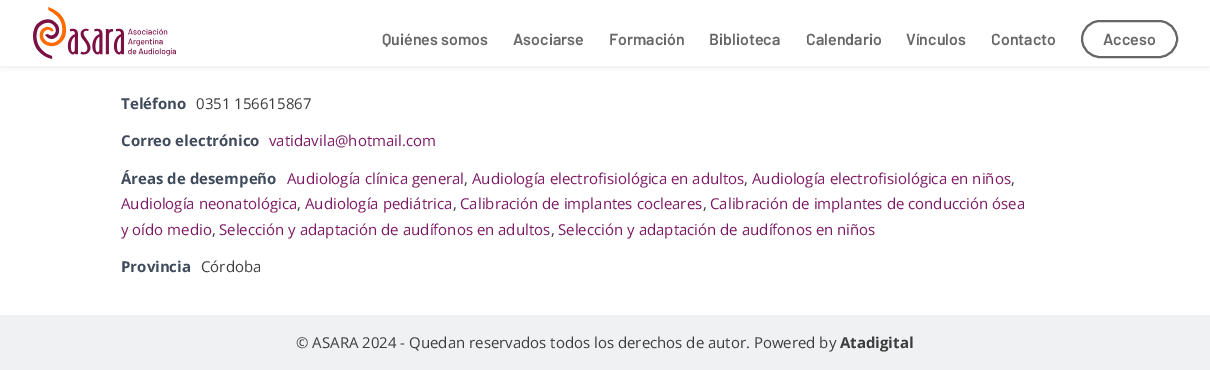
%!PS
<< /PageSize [1210 370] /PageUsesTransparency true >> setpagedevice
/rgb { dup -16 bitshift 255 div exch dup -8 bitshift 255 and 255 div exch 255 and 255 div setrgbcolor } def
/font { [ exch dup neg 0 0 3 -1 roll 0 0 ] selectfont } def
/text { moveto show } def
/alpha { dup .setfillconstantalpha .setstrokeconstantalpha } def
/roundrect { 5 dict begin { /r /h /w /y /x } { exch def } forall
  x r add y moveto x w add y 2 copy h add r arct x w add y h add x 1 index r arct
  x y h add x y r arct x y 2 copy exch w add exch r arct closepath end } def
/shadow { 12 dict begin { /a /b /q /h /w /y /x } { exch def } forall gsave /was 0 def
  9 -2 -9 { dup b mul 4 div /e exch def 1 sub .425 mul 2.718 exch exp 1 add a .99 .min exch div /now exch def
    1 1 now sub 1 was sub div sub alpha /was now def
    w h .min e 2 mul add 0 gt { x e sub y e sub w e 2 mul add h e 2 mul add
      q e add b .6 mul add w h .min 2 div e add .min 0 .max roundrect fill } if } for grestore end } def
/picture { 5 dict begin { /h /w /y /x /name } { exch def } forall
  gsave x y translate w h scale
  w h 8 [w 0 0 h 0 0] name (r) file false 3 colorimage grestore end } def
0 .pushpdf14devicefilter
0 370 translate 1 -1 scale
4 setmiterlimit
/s1 { /Barlow-SemiBold 16 font 16#666666 rgb } def
/s2 { /OpenSans-Bold 15 font 16#3F4B5B rgb } def
/s3 { /OpenSans-Regular 15 font 16#3D3D3D rgb } def
/s4 { /OpenSans-Regular 15 font 16#7D1964 rgb } def
/s5 { /OpenSans-Bold 15 font 16#3D3D3D rgb } def
16#FFFFFF rgb
0 0 1210 370 rectfill
16#000000 rgb
0 0 1210 66 0 3.5 0.1 shadow
16#FFFFFF rgb
0 0 1210 66 rectfill
(pic1.raw) 33 7 143 52 picture
s1
(Quiénes somos) 382 45 text
(Asociarse) 513 45 text
(Formación) 609 45 text
(Biblioteca) 709 45 text
(Calendario) 806 45 text
(Vínculos) 906 45 text
(Contacto) 991 45 text
2 setlinewidth
1082 21 95 36 18 roundrect stroke
(Acceso) 1103 45 text
s2
(Teléfono) 121 109 text
s3
(0351 156615867) 196 109 text
s2
(Correo electrónico) 121 146 text
s4
(vatidavila@hotmail.com) 269 146 text
s2
(Áreas de desempeño) 121 184 text
s4
(Audiología clínica general) 287 184 text
s3
(,) 464 184 text
s4
(Audiología electrofisiológica en adultos) 472 184 text
s3
(,) 744 184 text
s4
(Audiología electrofisiológica en niños) 752 184 text
s3
(,) 1011 184 text
s4
(Audiología neonatológica) 121 209 text
s3
(,) 297 209 text
s4
(Audiología pediátrica) 305 209 text
s3
(,) 453 209 text
s4
(Calibración de implantes cocleares) 460 209 text
s3
(,) 703 209 text
s4
(Calibración de implantes de conducción ósea) 710 209 text
(y oído medio) 121 235 text
s3
(,) 212 235 text
s4
(Selección y adaptación de audífonos en adultos) 219 235 text
s3
(,) 551 235 text
s4
(Selección y adaptación de audífonos en niños) 558 235 text
s2
(Provincia) 121 272 text
s3
(Córdoba) 201 272 text
16#EFF1F2 rgb
0 315 1210 55 rectfill
s3
(© ASARA 2024 - Quedan reservados todos los derechos de autor. Powered by) 296 348 text
s5
(Atadigital) 840 348 text
.poppdf14devicefilter showpage
